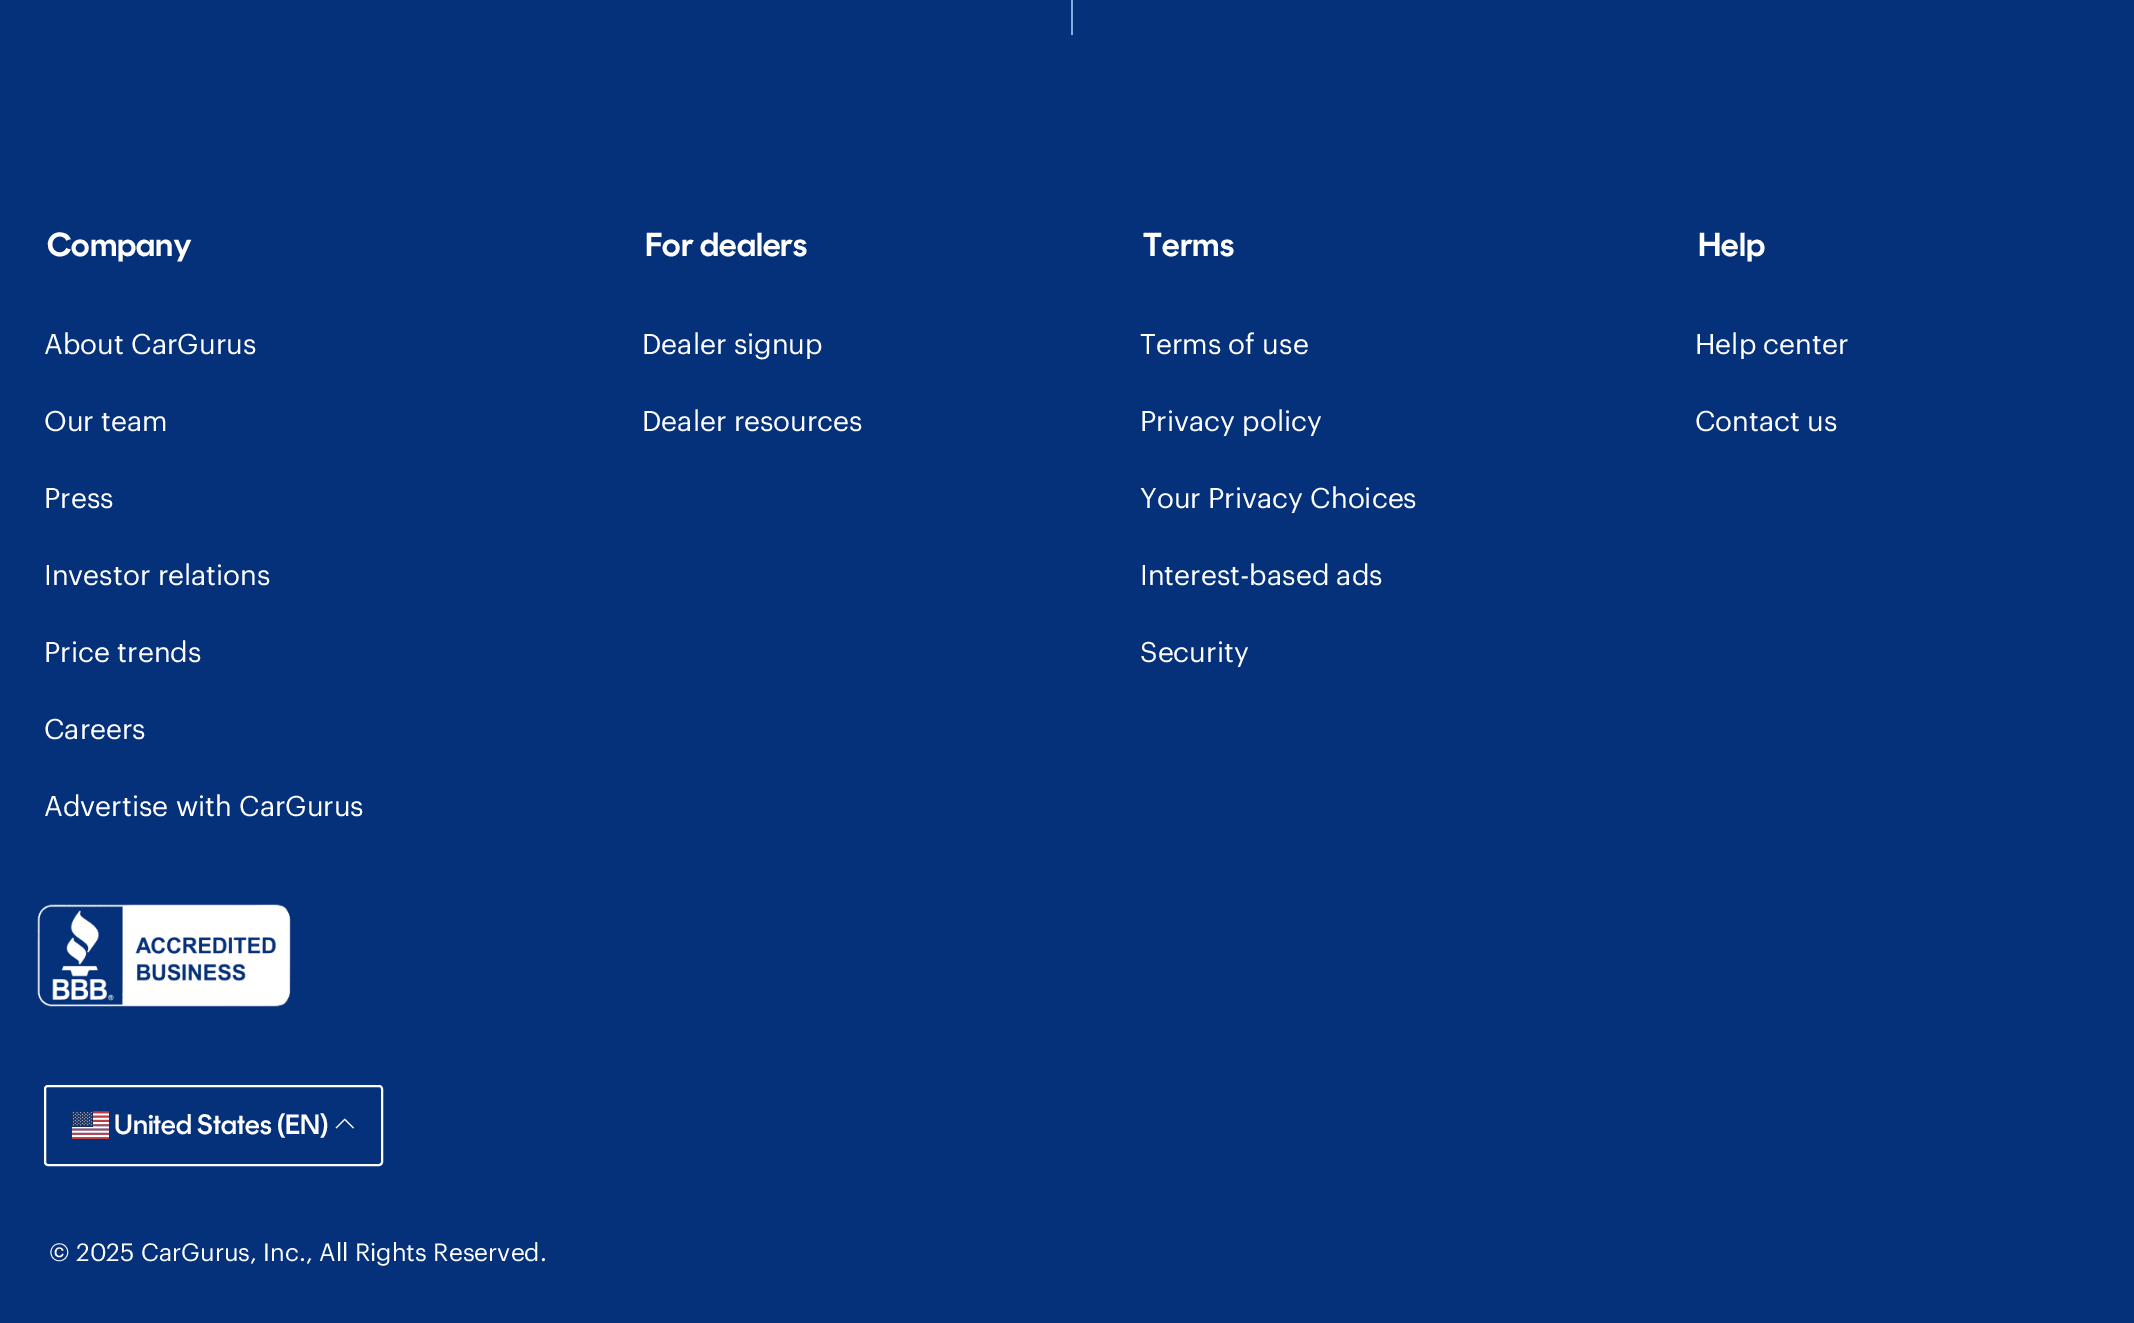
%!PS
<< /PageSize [2134 1323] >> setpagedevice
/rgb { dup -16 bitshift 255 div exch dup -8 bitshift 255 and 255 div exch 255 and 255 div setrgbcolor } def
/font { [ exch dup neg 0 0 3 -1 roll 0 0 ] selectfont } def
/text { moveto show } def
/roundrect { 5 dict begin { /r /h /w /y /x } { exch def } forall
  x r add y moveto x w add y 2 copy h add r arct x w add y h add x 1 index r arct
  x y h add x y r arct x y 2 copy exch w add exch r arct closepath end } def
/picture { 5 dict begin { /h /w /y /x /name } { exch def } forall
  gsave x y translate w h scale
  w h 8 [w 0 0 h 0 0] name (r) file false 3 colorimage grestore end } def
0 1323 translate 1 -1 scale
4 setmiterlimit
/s1 { /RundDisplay-SemiBold 33.25 font 16#FFFFFF rgb } def
/s2 { /Graphik-Regular 28 font 16#FFFFFF rgb } def
/s3 { /RundDisplay-Medium 28 font 16#FFFFFF rgb } def
/s4 { /Graphik-Regular 24.5 font 16#FFFFFF rgb } def
16#05317B rgb
0 0 2134 1323 rectfill
16#7DB0E3 rgb
1071 0 2 35 rectfill
s1
(Company) 47 256 text
s2
(About CarGurus) 44 354 text
(Our team) 44 431 text
(Press) 44 508 text
(Investor relations) 44 585 text
(Price trends) 44 662 text
(Careers) 44 739 text
(Advertise with CarGurus) 44 816 text
s1
(For dealers) 645 256 text
s2
(Dealer signup) 642 354 text
(Dealer resources) 642 431 text
s1
(Terms) 1143 256 text
s2
(Terms of use) 1140 354 text
(Privacy policy) 1140 431 text
(Your Privacy Choices) 1140 508 text
(Interest-based ads) 1140 585 text
(Security) 1140 662 text
s1
(Help) 1698 256 text
s2
(Help center) 1695 354 text
(Contact us) 1695 431 text
(pic1.raw) 37 904 254 103 picture
2 setlinewidth
45 1086 337 79 3 roundrect stroke
(pic2.raw) 72 1111 37 28 picture
s3
(United States \(EN\)) 114 1134 text
(pic3.raw) 335 1118 19 11 picture
s4
(© 2025 CarGurus, Inc., All Rights Reserved.) 49 1261 text
showpage
